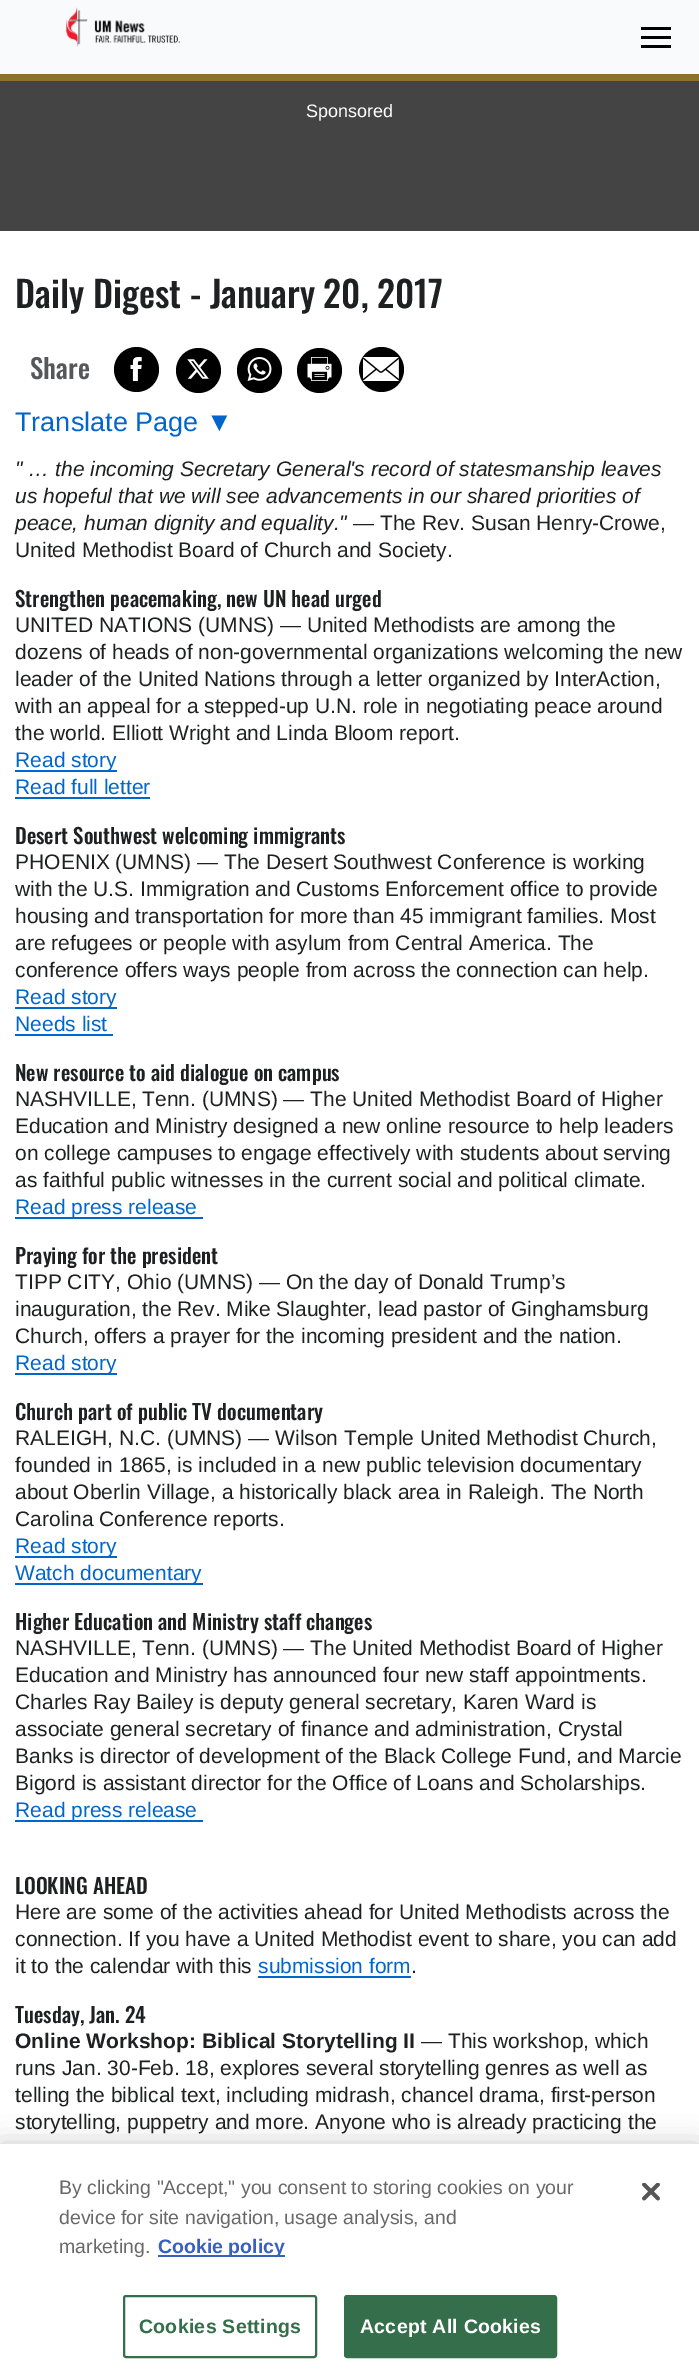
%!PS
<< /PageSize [699 2372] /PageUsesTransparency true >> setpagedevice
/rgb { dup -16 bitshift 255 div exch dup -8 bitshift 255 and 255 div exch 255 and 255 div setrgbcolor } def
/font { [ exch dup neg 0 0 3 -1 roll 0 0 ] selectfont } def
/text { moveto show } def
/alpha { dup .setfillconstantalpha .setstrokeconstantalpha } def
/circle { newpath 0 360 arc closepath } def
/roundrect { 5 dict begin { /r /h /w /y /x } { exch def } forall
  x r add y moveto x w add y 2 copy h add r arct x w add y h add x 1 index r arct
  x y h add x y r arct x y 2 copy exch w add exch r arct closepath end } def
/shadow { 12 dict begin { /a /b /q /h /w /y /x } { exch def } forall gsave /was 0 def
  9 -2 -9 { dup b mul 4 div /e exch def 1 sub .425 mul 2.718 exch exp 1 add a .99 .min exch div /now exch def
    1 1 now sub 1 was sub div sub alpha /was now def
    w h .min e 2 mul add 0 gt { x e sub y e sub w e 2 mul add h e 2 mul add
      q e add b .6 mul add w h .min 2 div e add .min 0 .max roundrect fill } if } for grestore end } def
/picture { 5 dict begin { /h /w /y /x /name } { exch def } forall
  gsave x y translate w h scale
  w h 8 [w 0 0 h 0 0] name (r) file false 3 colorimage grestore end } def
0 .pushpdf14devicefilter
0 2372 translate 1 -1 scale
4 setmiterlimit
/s1 { /LiberationSans-Regular 18 font 16#FFFFFF rgb } def
/s2 { /Oswald-Medium 36 font 16#1F2021 rgb } def
/s3 { /Oswald-Medium 27 font 16#54585A rgb } def
/s4 { /LiberationSans-Regular 27 font 16#0066CC rgb } def
/s5 { /LiberationSans-Italic 21 font 16#1F2021 rgb } def
/s6 { /LiberationSans-Regular 21 font 16#1F2021 rgb } def
/s7 { /Oswald-Medium 21 font 16#1F2021 rgb } def
/s8 { /LiberationSans-Regular 21 font 16#0066CC rgb } def
/s9 { /LiberationSans-Bold 21 font 16#1F2021 rgb } def
/s10 { /LiberationSans-Regular 19.5 font 16#696969 rgb } def
/s11 { /LiberationSans-Bold 19.5 font 16#3860BE rgb } def
16#FFFFFF rgb
0 0 699 2372 rectfill
16#F8FAFC rgb
0 0 699 74 rectfill
16#8F702E rgb
0 74 699 7 rectfill
(pic1.raw) 66 7 114 40 picture
16#000000 rgb
641 36 30 3 rectfill
641 27 30 3 rectfill
641 45 30 3 rectfill
16#444444 rgb
0 81 699 150 rectfill
s1
(Sponsored) 306 117 text
s2
(Daily Digest - January 20, 2017) 15 308 text
s3
(Share) 30 379 text
16#000000 rgb
136.5 369.5 22.5 circle fill
(pic2.raw) 130 357 12 24 picture
198.5 370.5 22.5 circle fill
(pic3.raw) 187 359 22 20 picture
259.5 370.5 22.5 circle fill
(pic4.raw) 247 357 25 24 picture
319.5 370.5 22.5 circle fill
(pic5.raw) 307 357 25 24 picture
381.5 369.5 22.5 circle fill
(pic6.raw) 363 357 36 24 picture
s4
(Translate Page ▼) 15 431 text
s5
(" … the incoming Secretary General's record of statesmanship leaves) 15 476 text
(us hopeful that we will see advancements in our shared priorities of) 15 503 text
(peace, human dignity and equality.") 15 530 text
s6
(— The Rev. Susan Henry-Crowe,) 353 530 text
(United Methodist Board of Church and Society.) 15 557 text
s7
(Strengthen peacemaking, new UN head urged) 15 607 text
s6
(UNITED NATIONS \(UMNS\) — United Methodists are among the) 15 632 text
(dozens of heads of non-governmental organizations welcoming the new) 15 659 text
(leader of the United Nations through a letter organized by InterAction,) 15 686 text
(with an appeal for a stepped-up U.N. role in negotiating peace around) 15 713 text
(the world. Elliott Wright and Linda Bloom report.) 15 740 text
16#0066CC rgb
15 770 102 2 rectfill
(Read story) 15 767 text
(Read full letter) 15 794 text
15 797 135 2 rectfill
s7
(Desert Southwest welcoming immigrants) 15 844 text
s6
(PHOENIX \(UMNS\) — The Desert Southwest Conference is working) 15 869 text
(with the U.S. Immigration and Customs Enforcement office to provide) 15 896 text
(housing and transportation for more than 45 immigrant families. Most) 15 923 text
(are refugees or people with asylum from Central America. The) 15 950 text
(conference offers ways people from across the connection can help.) 15 977 text
16#0066CC rgb
15 1007 102 2 rectfill
(Read story) 15 1004 text
(Needs list) 15 1031 text
15 1034 98 2 rectfill
s7
(New resource to aid dialogue on campus) 15 1081 text
s6
(NASHVILLE, Tenn. \(UMNS\) — The United Methodist Board of Higher) 15 1106 text
(Education and Ministry designed a new online resource to help leaders) 15 1133 text
(on college campuses to engage effectively with students about serving) 15 1160 text
(as faithful public witnesses in the current social and political climate.) 15 1187 text
16#0066CC rgb
15 1217 188 2 rectfill
(Read press release) 15 1214 text
s7
(Praying for the president) 15 1264 text
s6
(TIPP CITY, Ohio \(UMNS\) — On the day of Donald Trump’s) 15 1289 text
(inauguration, the Rev. Mike Slaughter, lead pastor of Ginghamsburg) 15 1316 text
(Church, offers a prayer for the incoming president and the nation.) 15 1343 text
16#0066CC rgb
15 1373 102 2 rectfill
(Read story) 15 1370 text
s7
(Church part of public TV documentary) 15 1420 text
s6
(RALEIGH, N.C. \(UMNS\) — Wilson Temple United Methodist Church,) 15 1445 text
(founded in 1865, is included in a new public television documentary) 15 1472 text
(about Oberlin Village, a historically black area in Raleigh. The North) 15 1499 text
(Carolina Conference reports.) 15 1526 text
16#0066CC rgb
15 1556 102 2 rectfill
(Read story) 15 1553 text
15 1583 188 2 rectfill
(Watch documentary) 15 1580 text
s7
(Higher Education and Ministry staff changes) 15 1630 text
s6
(NASHVILLE, Tenn. \(UMNS\) — The United Methodist Board of Higher) 15 1655 text
(Education and Ministry has announced four new staff appointments.) 15 1682 text
(Charles Ray Bailey is deputy general secretary, Karen Ward is) 15 1709 text
(associate general secretary of finance and administration, Crystal) 15 1736 text
(Banks is director of development of the Black College Fund, and Marcie) 15 1763 text
(Bigord is assistant director for the Office of Loans and Scholarships.) 15 1790 text
16#0066CC rgb
15 1820 188 2 rectfill
(Read press release) 15 1817 text
s7
(LOOKING AHEAD) 15 1894 text
s6
(Here are some of the activities ahead for United Methodists across the) 15 1919 text
(connection. If you have a United Methodist event to share, you can add) 15 1946 text
(it to the calendar with this) 15 1973 text
s8
(submission form) 258 1973 text
258 1976 153 2 rectfill
s6
(.) 411 1973 text
s7
(Tuesday, Jan. 24) 15 2023 text
s9
(Online Workshop: Biblical Storytelling II) 15 2048 text
s6
(— This workshop, which) 421 2048 text
(runs Jan. 30-Feb. 18, explores several storytelling genres as well as) 15 2075 text
(telling the biblical text, including midrash, chancel drama, first-person) 15 2102 text
(storytelling, puppetry and more. Anyone who is already practicing the) 15 2129 text
16#000000 rgb
0 2144 699 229 0 13.5 0.2 shadow
16#FFFFFF rgb
0 2144 699 228 rectfill
s10
(By clicking "Accept," you consent to storing cookies on your) 59 2194 text
(device for site navigation, usage analysis, and) 59 2224 text
(marketing.) 59 2253 text
16#3860BE rgb
158 2255 127 2 rectfill
s11
(Cookie policy) 158 2253 text
16#346E4A rgb
2 setlinewidth
124 2296 192 61 2 roundrect stroke
139 2333 moveto 0.25 0 (Cookies Settings) ashow
345 2296 211 61 2 roundrect gsave fill grestore
stroke
16#FFFFFF rgb
360 2333 moveto 0.25 0 (Accept All Cookies) ashow
(pic7.raw) 642 2183 18 18 picture
.poppdf14devicefilter showpage
